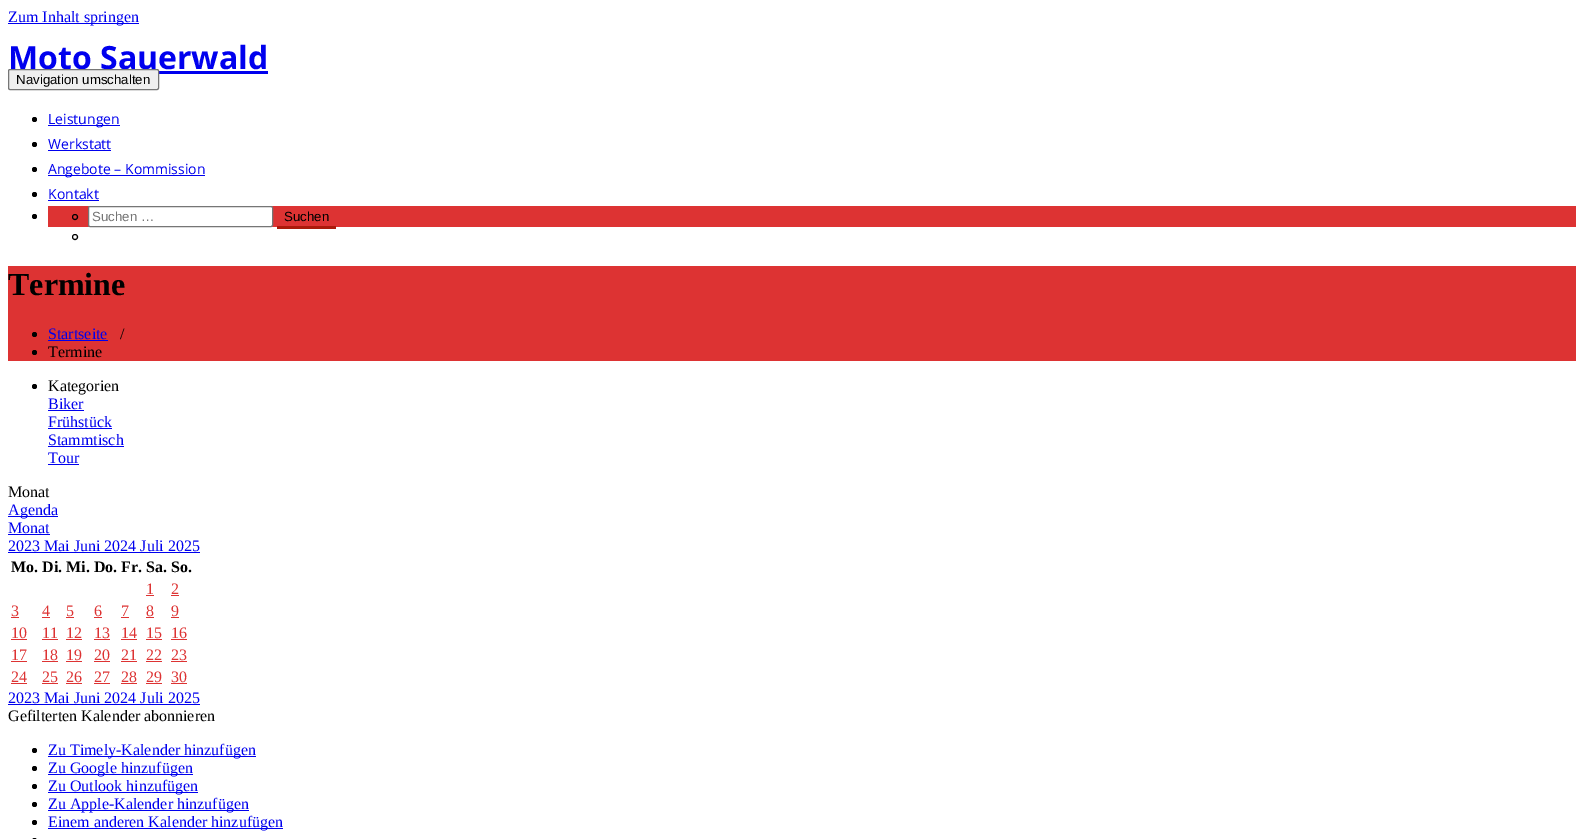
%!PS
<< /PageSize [1584 839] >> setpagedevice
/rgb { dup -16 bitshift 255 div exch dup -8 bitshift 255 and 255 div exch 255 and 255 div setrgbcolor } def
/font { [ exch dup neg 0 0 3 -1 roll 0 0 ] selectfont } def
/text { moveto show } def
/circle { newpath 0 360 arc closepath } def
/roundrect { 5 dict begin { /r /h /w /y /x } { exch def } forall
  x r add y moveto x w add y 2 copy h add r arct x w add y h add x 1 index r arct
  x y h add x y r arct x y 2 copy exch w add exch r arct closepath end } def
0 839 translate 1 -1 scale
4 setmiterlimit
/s1 { /LiberationSerif-Regular 16 font 16#0000EE rgb } def
/s2 { /OpenSans-Bold 32 font 16#0000EE rgb } def
/s3 { /LiberationSans-Regular 13.25 font 16#000000 rgb } def
/s4 { /OpenSans-Regular 14 font 16#0000EE rgb } def
/s5 { /LiberationSans-Regular 13.25 font 16#757575 rgb } def
/s6 { /LiberationSerif-Bold 32 font 16#000000 rgb } def
/s7 { /LiberationSerif-Regular 16 font 16#000000 rgb } def
/s8 { /LiberationSerif-Bold 16 font 16#000000 rgb } def
/s9 { /LiberationSerif-Regular 16 font 16#DD3333 rgb } def
16#FFFFFF rgb
0 0 1584 839 rectfill
16#0000EE rgb
8 23 131 1 rectfill
s1
(Zum Inhalt springen) 8 22 text
s2
(Moto Sauerwald) 8 69 text
159 71 109 3 rectfill
16#EFEFEF rgb
8.5 69.5 150 20 1.5 roundrect gsave fill grestore
16#767676 rgb
stroke
s3
(Navigation umschalten) 16 84 text
34.5 119.5 2.5 circle fill
16#0000EE rgb
48 125 72 1 rectfill
s4
(Leistungen) 48 124 text
16#000000 rgb
34.5 144.5 2.5 circle fill
s4
(Werkstatt) 48 149 text
48 150 63 1 rectfill
16#000000 rgb
34.5 169.5 2.5 circle fill
16#0000EE rgb
48 175 157 1 rectfill
(Angebote – Kommission) 48 174 text
16#000000 rgb
34.5 194.5 2.5 circle fill
s4
(Kontakt) 48 199 text
48 200 51 1 rectfill
16#000000 rgb
34.5 216.5 2.5 circle fill
16#DD3333 rgb
48 206 1528 21 rectfill
16#000000 rgb
75 217 2.5 circle stroke
16#FFFFFF rgb
88.5 206.5 184 20 1.5 roundrect gsave fill grestore
16#767676 rgb
stroke
s5
(Suchen …) 92 221 text
16#AB1A0B rgb
277 226 59 3 rectfill
s3
(Suchen) 284 221 text
75 237 2.5 circle stroke
16#DD3333 rgb
8 266 1568 95 rectfill
s6
(Termine) 8 295 text
34.5 334.5 2.5 circle fill
s1
(Startseite) 48 339 text
48 340 60 1 rectfill
s7
(/) 120 339 text
34.5 352.5 2.5 circle fill
(Termine) 48 357 text
34.5 386.5 2.5 circle fill
(Kategorien) 48 391 text
s1
(Biker) 48 409 text
48 410 36 1 rectfill
(Frühstück) 48 427 text
48 428 64 1 rectfill
(Stammtisch) 48 445 text
48 446 76 1 rectfill
(Tour) 48 463 text
48 464 31 1 rectfill
s7
(Monat) 8 497 text
16#0000EE rgb
8 516 50 1 rectfill
(Agenda) 8 515 text
(Monat) 8 533 text
8 534 42 1 rectfill
(2023 Mai Juni 2024 Juli 2025) 8 551 text
8 552 192 1 rectfill
s8
(Mo. Di. Mi. Do. Fr. Sa. So.) 11 572 text
s9
(1) 146 594 text
146 595 8 1 rectfill
(2) 171 594 text
171 595 8 1 rectfill
(3) 11 616 text
11 617 8 1 rectfill
(4) 42 616 text
42 617 8 1 rectfill
(5) 66 616 text
66 617 8 1 rectfill
(6) 94 616 text
94 617 8 1 rectfill
(7) 121 616 text
121 617 8 1 rectfill
(8) 146 616 text
146 617 8 1 rectfill
(9) 171 616 text
171 617 8 1 rectfill
(10) 11 638 text
11 639 16 1 rectfill
(11) 42 638 text
42 639 16 1 rectfill
(12) 66 638 text
66 639 16 1 rectfill
(13) 94 638 text
94 639 16 1 rectfill
(14) 121 638 text
121 639 16 1 rectfill
(15) 146 638 text
146 639 16 1 rectfill
(16) 171 638 text
171 639 16 1 rectfill
(17) 11 660 text
11 661 16 1 rectfill
(18) 42 660 text
42 661 16 1 rectfill
(19) 66 660 text
66 661 16 1 rectfill
(20) 94 660 text
94 661 16 1 rectfill
(21) 121 660 text
121 661 16 1 rectfill
(22) 146 660 text
146 661 16 1 rectfill
(23) 171 660 text
171 661 16 1 rectfill
(24) 11 682 text
11 683 16 1 rectfill
(25) 42 682 text
42 683 16 1 rectfill
(26) 66 682 text
66 683 16 1 rectfill
(27) 94 682 text
94 683 16 1 rectfill
(28) 121 682 text
121 683 16 1 rectfill
(29) 146 682 text
146 683 16 1 rectfill
(30) 171 682 text
171 683 16 1 rectfill
s1
(2023 Mai Juni 2024 Juli 2025) 8 703 text
8 704 192 1 rectfill
s7
(Gefilterten Kalender abonnieren) 8 721 text
34.5 750.5 2.5 circle fill
16#0000EE rgb
48 756 208 1 rectfill
(Zu Timely-Kalender hinzufügen) 48 755 text
16#000000 rgb
34.5 768.5 2.5 circle fill
16#0000EE rgb
48 774 145 1 rectfill
(Zu Google hinzufügen) 48 773 text
16#000000 rgb
34.5 786.5 2.5 circle fill
16#0000EE rgb
48 792 150 1 rectfill
(Zu Outlook hinzufügen) 48 791 text
16#000000 rgb
34.5 804.5 2.5 circle fill
16#0000EE rgb
48 810 201 1 rectfill
(Zu Apple-Kalender hinzufügen) 48 809 text
16#000000 rgb
34.5 822.5 2.5 circle fill
16#0000EE rgb
48 828 235 1 rectfill
(Einem anderen Kalender hinzufügen) 48 827 text
16#000000 rgb
32 838 5 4 2.5 roundrect fill
showpage
